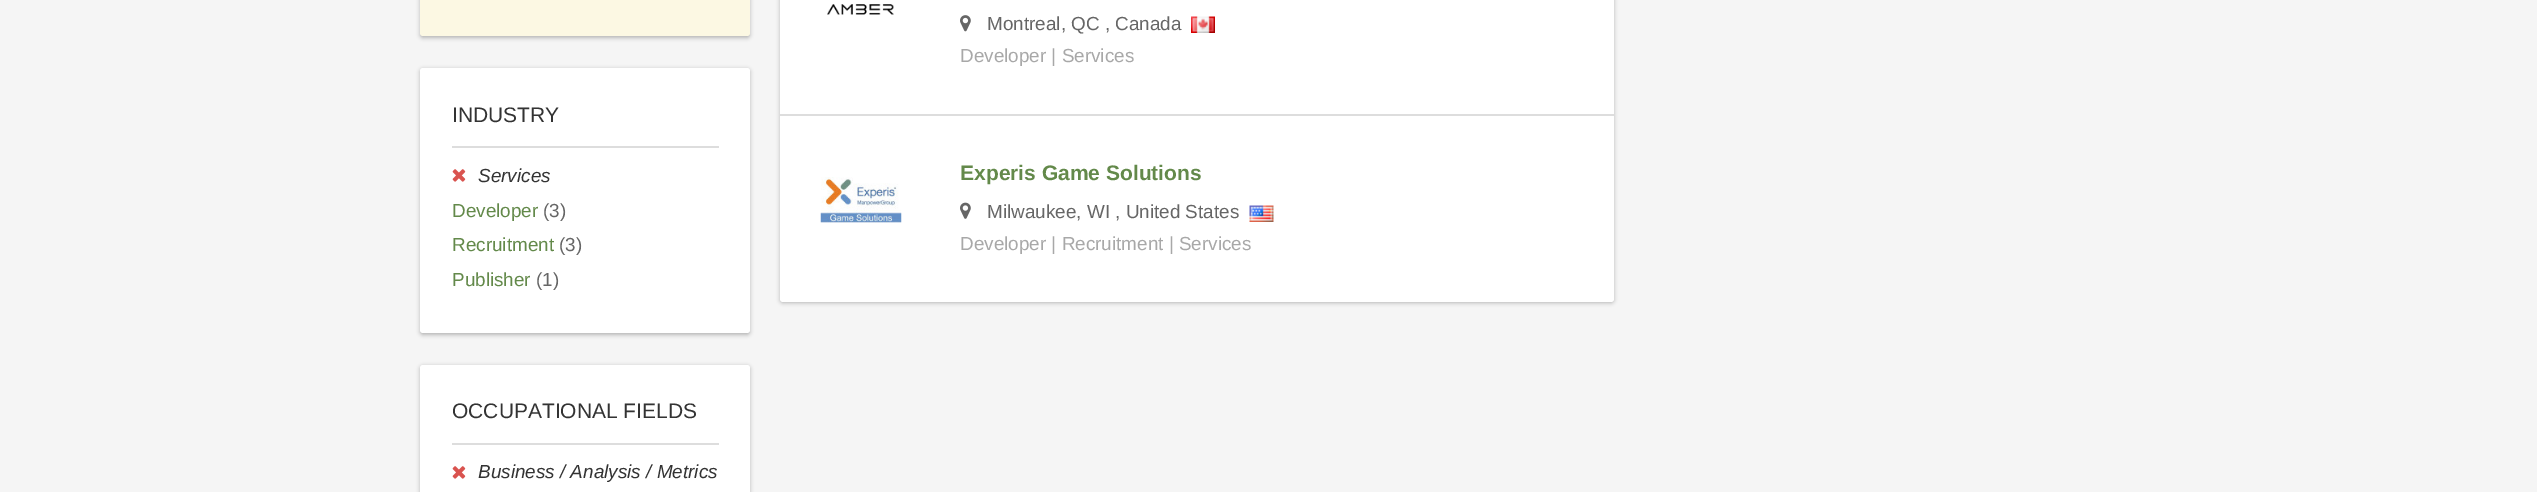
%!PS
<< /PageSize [2537 492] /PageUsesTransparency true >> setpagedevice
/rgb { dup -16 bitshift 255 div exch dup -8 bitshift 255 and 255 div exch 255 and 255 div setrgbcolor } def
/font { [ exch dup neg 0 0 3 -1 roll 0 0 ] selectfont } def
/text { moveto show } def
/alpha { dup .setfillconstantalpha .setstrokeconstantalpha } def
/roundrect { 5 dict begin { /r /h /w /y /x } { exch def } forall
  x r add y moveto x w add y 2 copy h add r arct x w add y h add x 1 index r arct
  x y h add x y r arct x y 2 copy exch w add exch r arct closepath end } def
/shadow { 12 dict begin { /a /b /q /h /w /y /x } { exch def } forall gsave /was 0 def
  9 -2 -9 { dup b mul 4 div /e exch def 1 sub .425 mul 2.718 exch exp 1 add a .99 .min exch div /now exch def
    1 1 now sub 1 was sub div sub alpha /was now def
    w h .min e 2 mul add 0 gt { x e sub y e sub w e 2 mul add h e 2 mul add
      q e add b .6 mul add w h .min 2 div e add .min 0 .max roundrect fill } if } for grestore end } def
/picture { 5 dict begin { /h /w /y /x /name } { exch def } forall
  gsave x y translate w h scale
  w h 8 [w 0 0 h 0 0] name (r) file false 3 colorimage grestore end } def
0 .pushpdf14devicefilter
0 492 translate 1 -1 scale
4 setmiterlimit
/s1 { /LiberationSans-Regular 21 font 16#333333 rgb } def
/s2 { /LiberationSans-Italic 18.9 font 16#333333 rgb } def
/s3 { /LiberationSans-Regular 18.9 font 16#63894A rgb } def
/s4 { /LiberationSans-Regular 18.9 font 16#666666 rgb } def
/s5 { /LiberationSans-Regular 18.9 font 16#A8A8A8 rgb } def
/s6 { /LiberationSans-Bold 21 font 16#63894A rgb } def
16#F5F5F5 rgb
0 0 2537 492 rectfill
16#000000 rgb
420 -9 330 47 3 2 0.25 shadow
16#FCF8E3 rgb
420 -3 330 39 3 roundrect fill
16#000000 rgb
420 69 330 266 3 2 0.25 shadow
16#FFFFFF rgb
420 68 330 265 3 roundrect fill
16#DDDDDD rgb
452 146 267 2 rectfill
s1
(INDUSTRY) 452 122 text
(pic1.raw) 452 169 14 13 picture
s2
(Services) 478 182 text
s3
(Developer) 452 217 text
s4
(\(3\)) 543 217 text
s3
(Recruitment) 452 251 text
s4
(\(3\)) 559 251 text
s3
(Publisher) 452 286 text
s4
(\(1\)) 536 286 text
16#000000 rgb
420 366 330 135 3 2 0.25 shadow
16#FFFFFF rgb
420 365 330 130 3 roundrect fill
16#DDDDDD rgb
452 443 267 2 rectfill
s1
(OCCUPATIONAL FIELDS) 452 418 text
(pic1.raw) 452 466 14 13 picture
s2
(Business / Analysis / Metrics) 478 478 text
16#000000 rgb
780 -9 834 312 3 2 0.25 shadow
16#FFFFFF rgb
780 -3 834 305 3 roundrect fill
(pic2.raw) 827 4 67 11 picture
(pic3.raw) 960 15 11 17 picture
s4
(Montreal, QC , Canada) 987 30 text
(pic4.raw) 1191 16 24 17 picture
s5
(Developer | Services) 960 62 text
16#DDDDDD rgb
780 114 834 2 rectfill
(pic5.raw) 820 177 82 46 picture
s6
(Experis Game Solutions) 960 180 text
(pic6.raw) 960 202 11 17 picture
s4
(Milwaukee, WI , United States) 987 218 text
(pic7.raw) 1249 205 25 17 picture
s5
(Developer | Recruitment | Services) 960 250 text
.poppdf14devicefilter showpage
